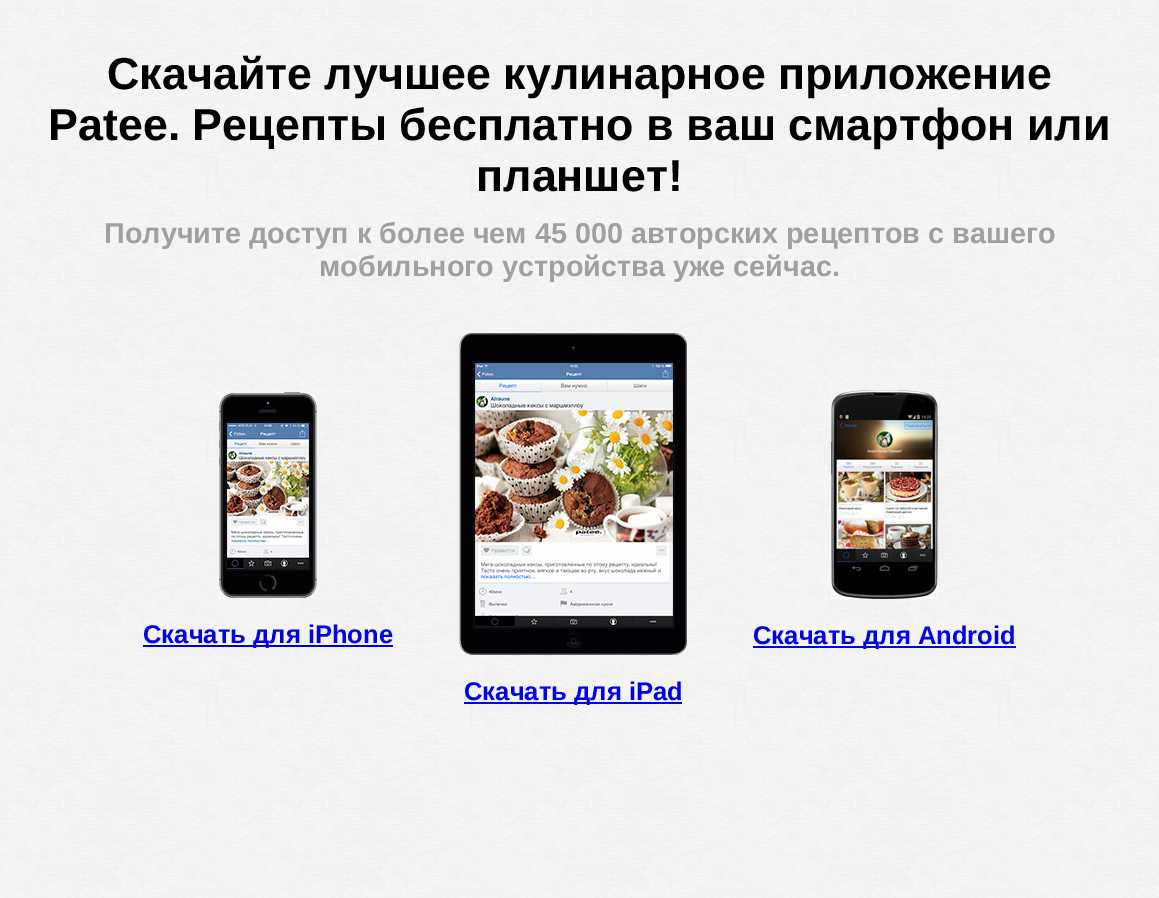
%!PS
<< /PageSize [1159 898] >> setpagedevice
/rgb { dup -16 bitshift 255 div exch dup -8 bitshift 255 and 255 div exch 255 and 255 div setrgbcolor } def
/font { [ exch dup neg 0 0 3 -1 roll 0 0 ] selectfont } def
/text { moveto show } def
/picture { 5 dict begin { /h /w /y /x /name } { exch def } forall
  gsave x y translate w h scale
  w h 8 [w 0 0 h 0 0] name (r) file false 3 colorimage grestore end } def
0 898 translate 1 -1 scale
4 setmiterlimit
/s1 { /LiberationSans-Bold 44.8 font 16#000000 rgb } def
/s2 { /LiberationSans-Bold 28.8 font 16#A0A0A0 rgb } def
/s3 { /LiberationSans-Bold 25.6 font 16#0000EE rgb } def
16#FFFFFF rgb
0 0 1159 898 rectfill
(pic1.raw) 0 0 1159 898 picture
s1
(Скачайте лучшее кулинарное приложение) 107 89 text
(Patee. Рецепты бесплатно в ваш смартфон или) 48 140 text
(планшет!) 476 191 text
s2
(Получите доступ к более чем 45 000 авторских рецептов с вашего) 104 243 text
(мобильного устройства уже сейчас.) 319 276 text
(pic2.raw) 219 391 98 207 picture
16#0000EE rgb
143 645 250 2 rectfill
s3
(Скачать для iPhone) 143 643 text
(pic3.raw) 831 390 107 209 picture
753 646 263 2 rectfill
(Скачать для Android) 753 644 text
(pic4.raw) 459 333 228 322 picture
464 702 218 2 rectfill
(Скачать для iPad) 464 700 text
showpage
